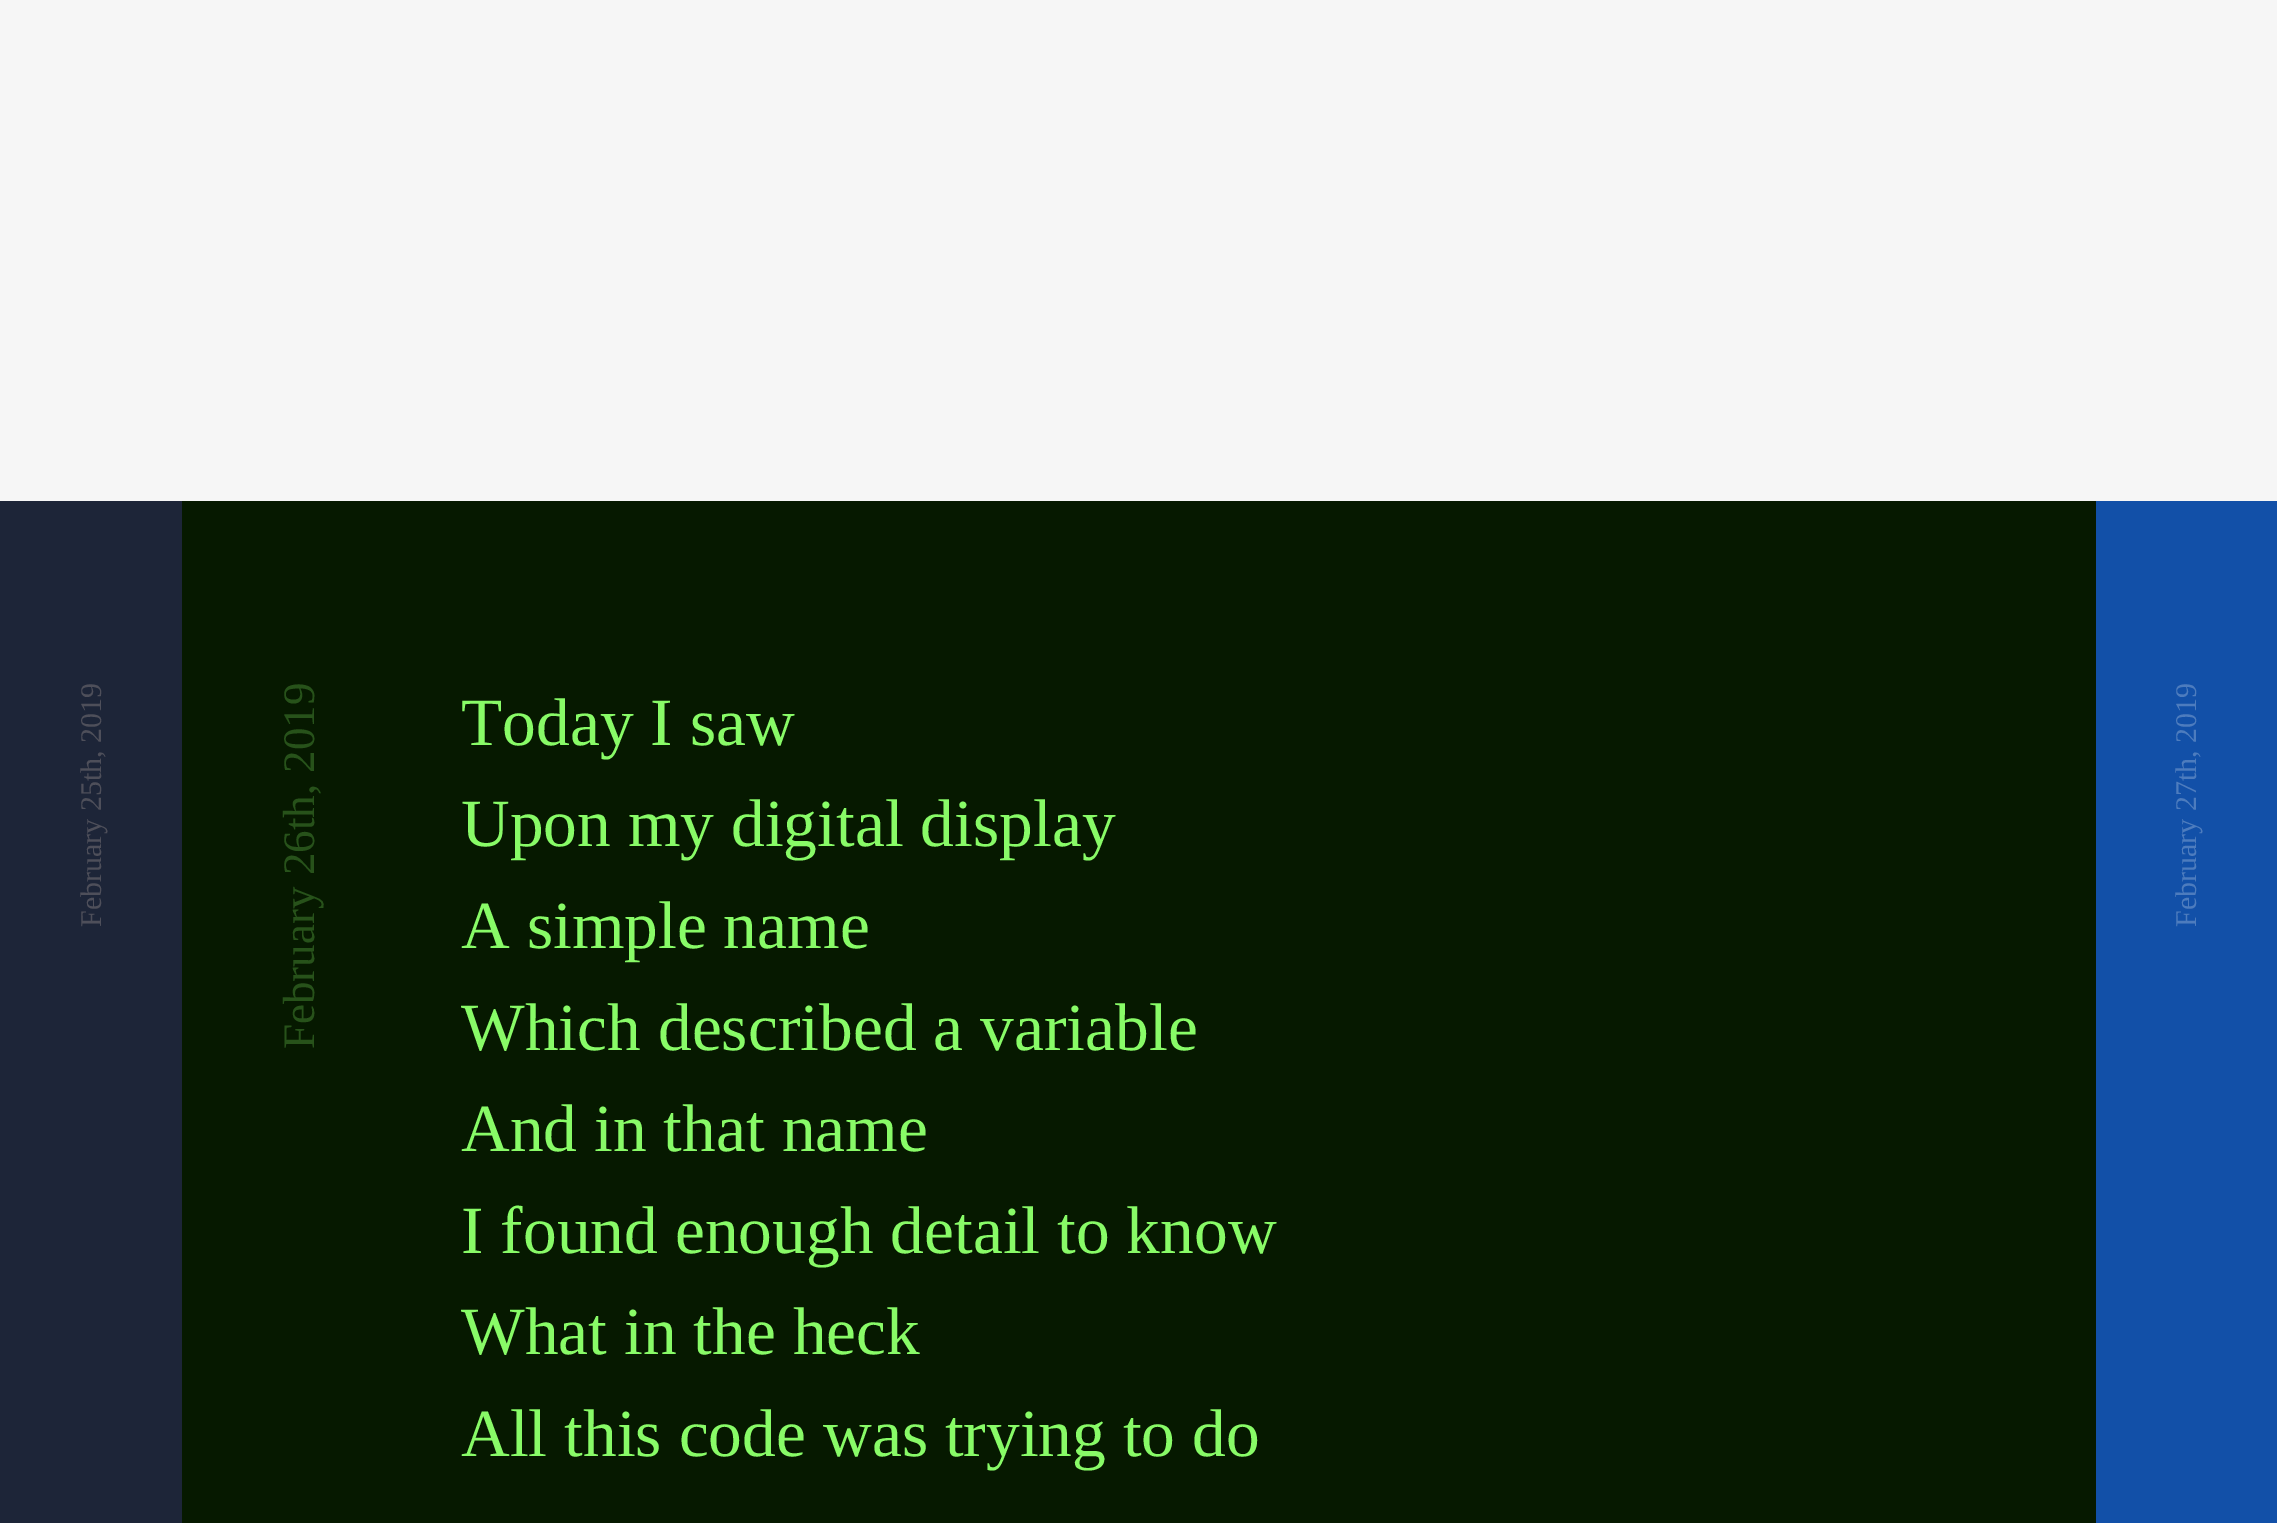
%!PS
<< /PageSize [2277 1523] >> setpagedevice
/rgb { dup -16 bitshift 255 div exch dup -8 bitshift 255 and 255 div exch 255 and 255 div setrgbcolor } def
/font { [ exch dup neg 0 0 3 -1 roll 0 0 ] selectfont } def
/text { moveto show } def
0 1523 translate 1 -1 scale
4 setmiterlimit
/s1 { /LiberationSerif-Regular 67.5 font 16#88FB67 rgb } def
16#F6F6F6 rgb
0 0 2277 1523 rectfill
16#1D2538 rgb
0 501 182 1022 rectfill
/LiberationSerif-Regular 30 font
16#4E4F5A rgb
gsave 101 927 translate -90 rotate 0 0 moveto (February 25th, 2019) show grestore
16#061900 rgb
182 501 1914 1022 rectfill
/LiberationSerif-Regular 45 font
16#27521A rgb
gsave 314 1049 translate -90 rotate 0 0 moveto (February 26th, 2019) show grestore
s1
(Today I saw) 461 745 text
(Upon my digital display) 461 846 text
(A simple name) 461 948 text
(Which described a variable) 461 1050 text
(And in that name) 461 1151 text
(I found enough detail to know) 461 1253 text
(What in the heck) 461 1354 text
(All this code was trying to do) 461 1456 text
16#1250A8 rgb
2096 501 181 1022 rectfill
/LiberationSerif-Regular 30 font
16#4D7CBE rgb
gsave 2196 927 translate -90 rotate 0 0 moveto (February 27th, 2019) show grestore
showpage
